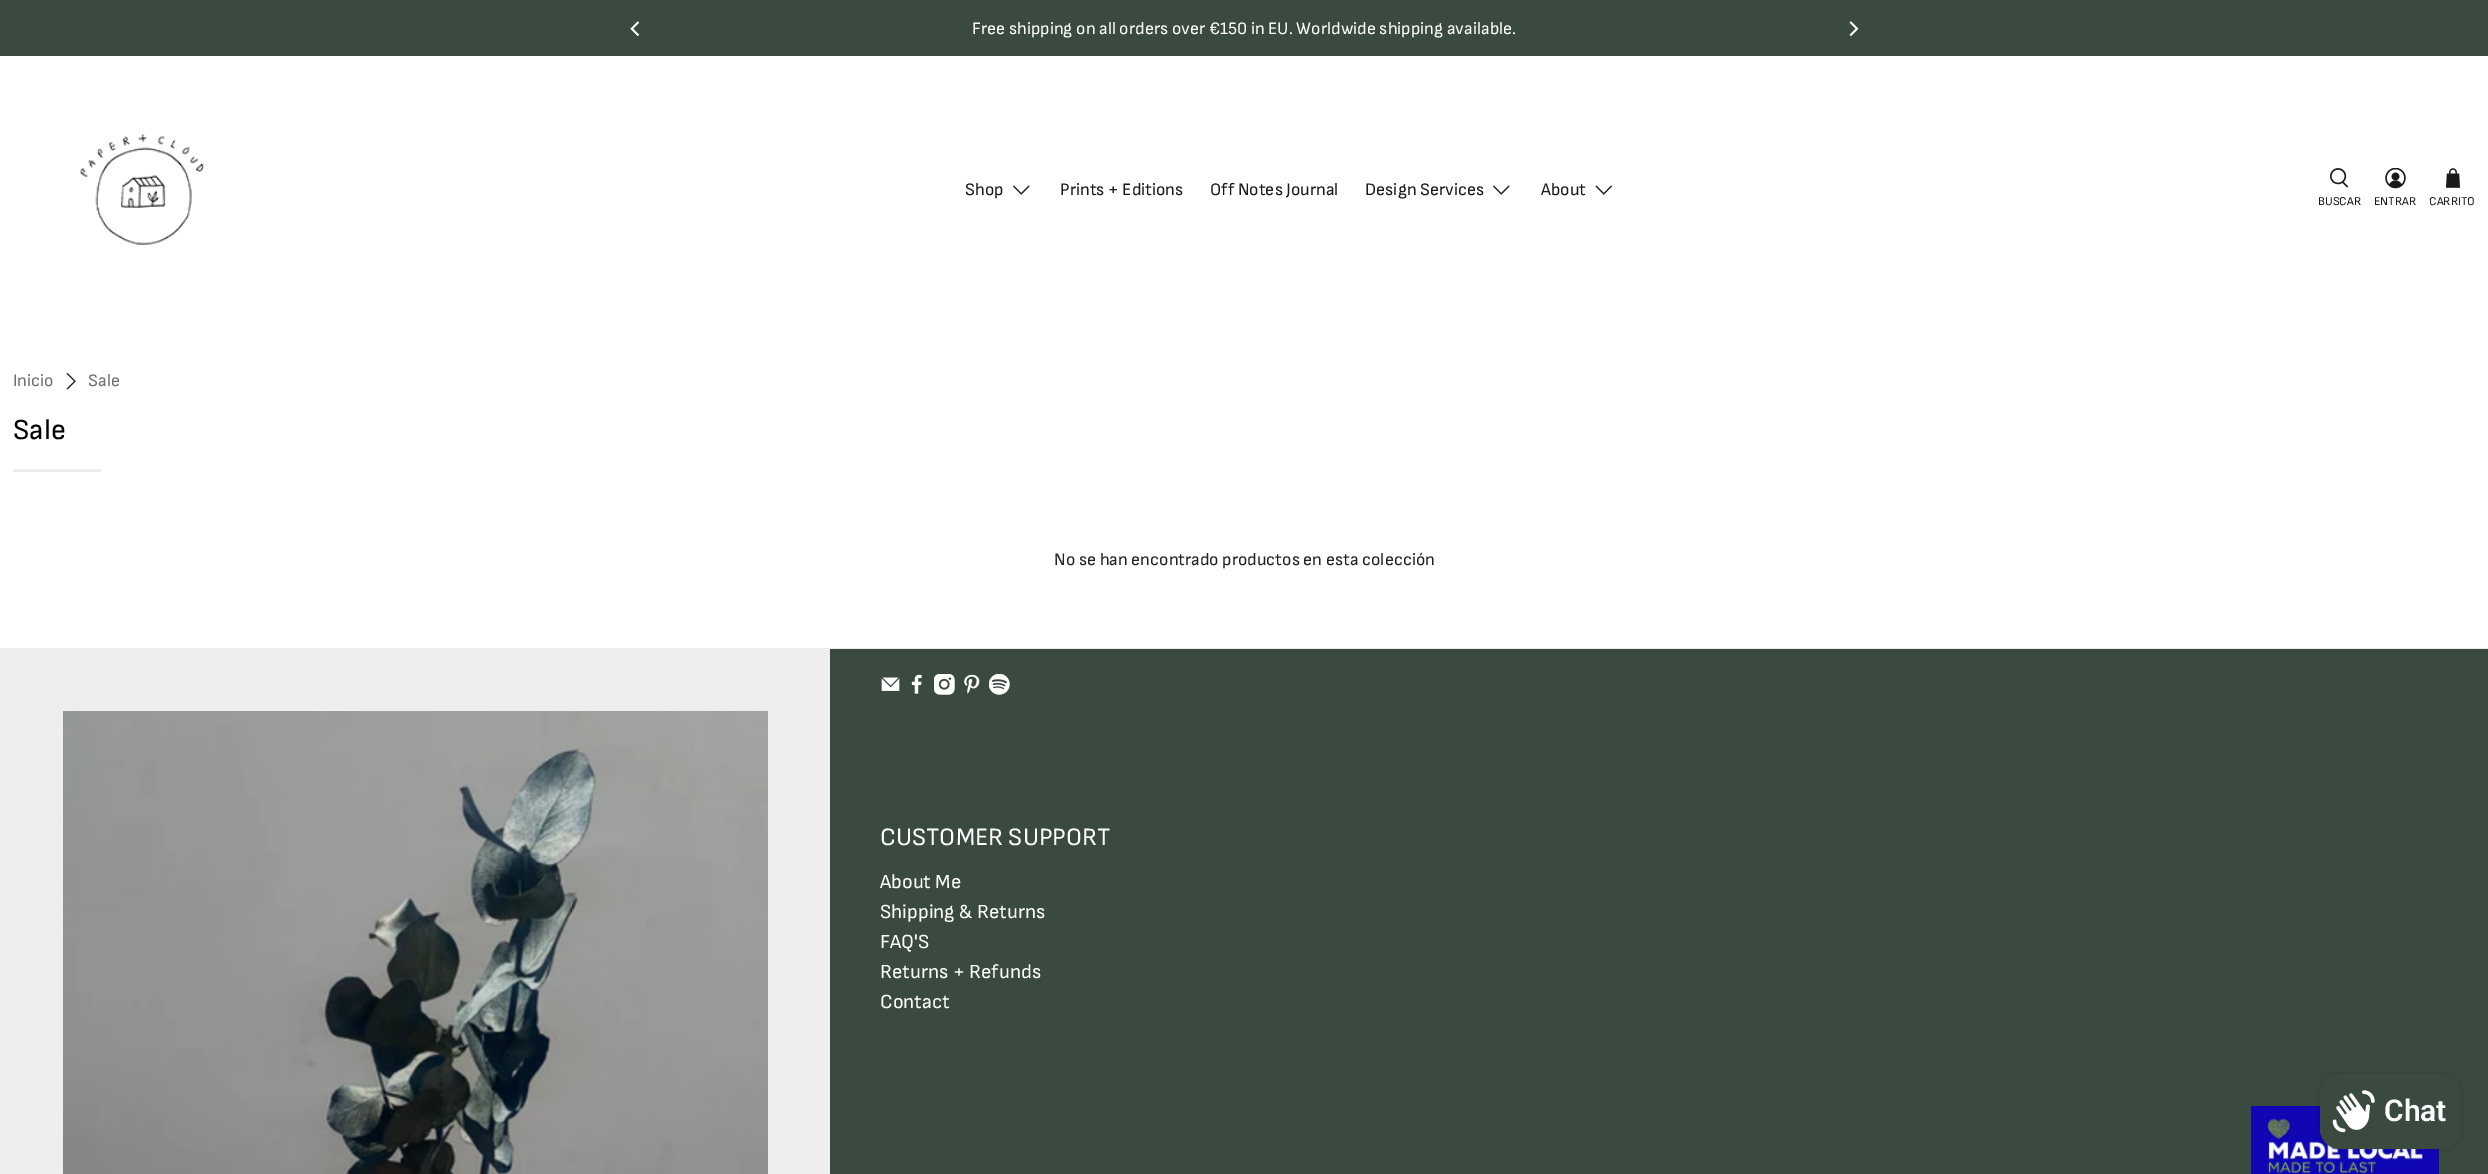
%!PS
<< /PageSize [2488 1174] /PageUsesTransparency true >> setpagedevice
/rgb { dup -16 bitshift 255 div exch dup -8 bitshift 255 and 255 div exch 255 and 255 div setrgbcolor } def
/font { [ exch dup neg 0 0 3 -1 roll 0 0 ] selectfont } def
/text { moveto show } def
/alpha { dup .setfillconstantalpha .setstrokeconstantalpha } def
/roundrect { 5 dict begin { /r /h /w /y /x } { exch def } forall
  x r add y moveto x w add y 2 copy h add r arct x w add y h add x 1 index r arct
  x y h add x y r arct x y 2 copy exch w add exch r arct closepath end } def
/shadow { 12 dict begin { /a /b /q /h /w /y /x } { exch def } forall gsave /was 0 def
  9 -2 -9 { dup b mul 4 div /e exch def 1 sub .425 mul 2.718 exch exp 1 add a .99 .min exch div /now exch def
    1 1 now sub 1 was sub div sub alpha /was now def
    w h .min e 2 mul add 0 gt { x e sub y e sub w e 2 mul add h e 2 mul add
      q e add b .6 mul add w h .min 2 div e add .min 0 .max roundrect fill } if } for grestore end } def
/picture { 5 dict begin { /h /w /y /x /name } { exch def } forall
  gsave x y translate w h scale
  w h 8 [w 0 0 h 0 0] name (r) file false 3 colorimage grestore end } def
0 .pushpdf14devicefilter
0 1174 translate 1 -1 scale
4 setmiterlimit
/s1 { /SofiaSans-Regular 17.5 font 16#FFFFFF rgb } def
/s2 { /SofiaSans-Regular 17.5 font 16#1A1A1A rgb } def
/s3 { /SofiaSans-Regular 12 font 16#1A1A1A rgb } def
/s4 { /SofiaSans-Regular 17.5 font 16#6F6F6F rgb } def
/s5 { /SofiaSans-Regular 29 font 16#000000 rgb } def
/s6 { /SofiaSans-Regular 17.5 font 16#222222 rgb } def
/s7 { /SofiaSans-Regular 25 font 16#FFFFFF rgb } def
/s8 { /SofiaSans-Regular 20 font 16#FFFFFF rgb } def
/s9 { /Roboto-SemiBold 30 font 16#FFFFFF rgb } def
16#FFFFFF rgb
0 0 2488 1174 rectfill
16#3A4A3F rgb
0 0 2488 56 rectfill
(pic1.raw) 630 21 10 16 picture
s1
(Free shipping on all orders over €150 in EU. Worldwide shipping available.) 972 34 text
(pic2.raw) 1849 21 10 16 picture
(pic3.raw) 80 133 124 112 picture
s2
(Shop) 965 195 text
(pic4.raw) 1013 185 17 10 picture
(Prints + Editions) 1060 195 text
(Off Notes Journal) 1210 195 text
(Design Services) 1365 195 text
(pic4.raw) 1493 185 17 10 picture
(About) 1541 195 text
(pic5.raw) 1595 185 17 10 picture
(pic6.raw) 2330 168 19 20 picture
s3
(BUSCAR) 2318 205 text
(pic7.raw) 2385 168 21 21 picture
(ENTRAR) 2374 205 text
(pic8.raw) 2445 168 16 20 picture
(CARRITO) 2429 205 text
s4
(Inicio) 13 386 text
(pic9.raw) 66 373 10 17 picture
(Sale) 88 386 text
s5
(Sale) 13 439 text
16#EDEDED rgb
13 469 88 3 rectfill
s6
(No se han encontrado productos en esta colección) 1054 565 text
16#EDEDED rgb
0 648 2488 1 rectfill
16#EEEEEE rgb
0 649 830 525 rectfill
(pic10.raw) 63 711 705 463 picture
16#3A4A3F rgb
830 649 1658 525 rectfill
(pic11.raw) 881 677 19 14 picture
(pic12.raw) 911 674 11 20 picture
(pic13.raw) 934 674 21 21 picture
(pic14.raw) 964 674 16 20 picture
(pic15.raw) 989 674 21 21 picture
s7
(CUSTOMER SUPPORT) 880 845 text
s8
(About Me) 880 888 text
(Shipping & Returns) 880 918 text
(FAQ'S) 880 948 text
(Returns + Refunds) 880 978 text
(Contact) 880 1008 text
(pic16.raw) 2251 1106 188 68 picture
16#000000 rgb
2320 1074 141 75 20 3 0.15 shadow
16#3A4A3F rgb
2320 1074 141 75 20 roundrect fill
(pic17.raw) 2332 1090 43 43 picture
s9
(Chat) 2384 1121 text
.poppdf14devicefilter showpage
